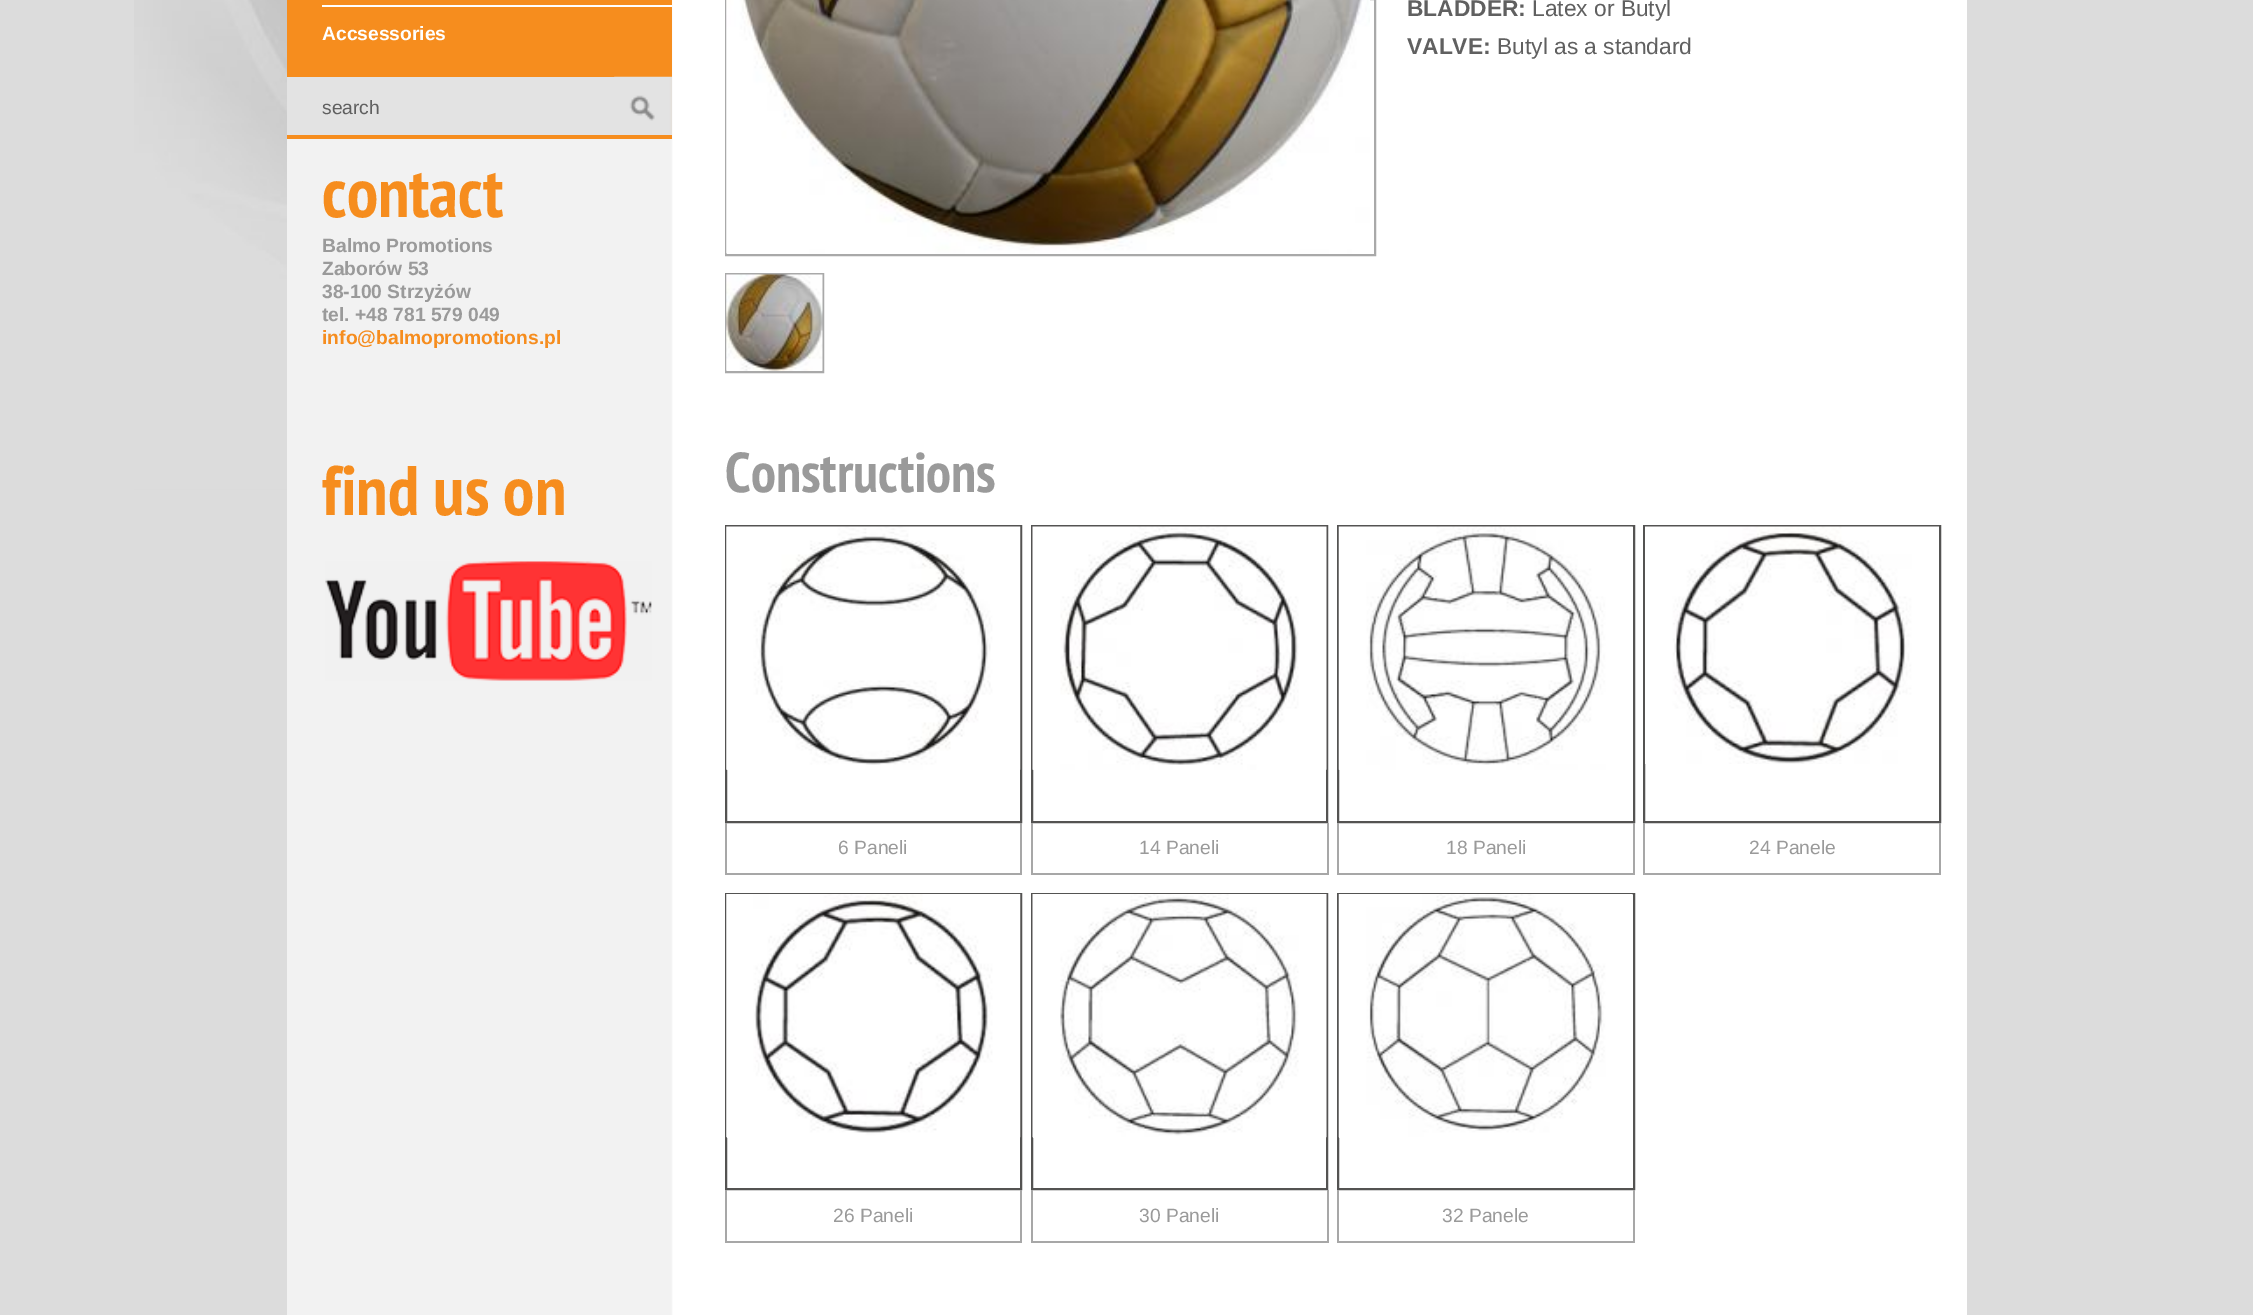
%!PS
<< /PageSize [2253 1315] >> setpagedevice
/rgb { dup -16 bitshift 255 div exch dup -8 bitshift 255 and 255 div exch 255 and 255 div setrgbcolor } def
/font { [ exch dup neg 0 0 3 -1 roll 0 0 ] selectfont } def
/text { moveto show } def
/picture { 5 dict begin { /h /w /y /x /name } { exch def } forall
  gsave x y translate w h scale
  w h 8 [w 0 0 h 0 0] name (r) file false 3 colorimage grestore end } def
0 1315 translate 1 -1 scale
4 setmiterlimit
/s1 { /LiberationSans-Bold 19.25 font 16#FFFFFF rgb } def
/s2 { /LiberationSans-Regular 19.25 font 16#606060 rgb } def
/s3 { /PTSansNarrow-Bold 70 font 16#F68D1E rgb } def
/s4 { /LiberationSans-Bold 19.25 font 16#9A9A9A rgb } def
/s5 { /LiberationSans-Bold 19.25 font 16#F68D1E rgb } def
/s6 { /LiberationSans-Bold 22.75 font 16#606060 rgb } def
/s7 { /LiberationSans-Regular 22.75 font 16#606060 rgb } def
/s8 { /PTSansNarrow-Bold 56 font 16#9A9A9A rgb } def
/s9 { /LiberationSans-Regular 19.25 font 16#9A9A9A rgb } def
16#DCDCDC rgb
0 0 2253 1315 rectfill
(pic1.raw) 134 489 153 1 picture
(pic2.raw) 134 0 153 490 picture
(pic3.raw) 287 0 1680 1315 picture
16#F68D1E rgb
287 0 385 77 rectfill
16#FFFFFF rgb
322 5 350 2 rectfill
s1
(Accsessories) 322 40 text
16#E3E3E3 rgb
287 77 385 58 rectfill
16#F68D1E rgb
287 135 385 4 rectfill
s2
(search) 322 114 text
(pic4.raw) 614 76 58 59 picture
s3
(contact) 322 217 text
s4
(Balmo Promotions) 322 252 text
(Zaborów 53) 322 275 text
(38-100 Strzyżów) 322 298 text
(tel. +48 781 579 049) 322 321 text
s5
(info@balmopromotions.pl) 322 344 text
s3
(find us on) 322 515 text
(pic5.raw) 325 561 327 120 picture
16#A9A9A9 rgb
2 setlinewidth
726 -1 649 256 rectstroke
(pic6.raw) 726 0 644 254 picture
s6
(BLADDER:) 1407 16 text
s7
(Latex or Butyl) 1532 16 text
s6
(VALVE:) 1407 54 text
s7
(Butyl as a standard) 1497 54 text
16#A9A9A9 rgb
726 274 97 98 rectstroke
(pic7.raw) 726 274 97 97 picture
s8
(Constructions) 725 492 text
16#545352 rgb
726 526 295 296 rectstroke
(pic8.raw) 726 526 295 244 picture
16#A7A7A7 rgb
1020 823 2 52 rectfill
725 873 297 2 rectfill
725 823 2 52 rectfill
s9
(6 Paneli) 838 854 text
16#545352 rgb
1032 526 295 296 rectstroke
(pic9.raw) 1032 526 295 244 picture
16#A7A7A7 rgb
1327 823 2 52 rectfill
1031 873 297 2 rectfill
1031 823 2 52 rectfill
s9
(14 Paneli) 1139 854 text
16#545352 rgb
1338 526 296 296 rectstroke
(pic10.raw) 1338 526 295 244 picture
16#A7A7A7 rgb
1633 823 2 52 rectfill
1337 873 298 2 rectfill
1337 823 2 52 rectfill
s9
(18 Paneli) 1446 854 text
16#545352 rgb
1644 526 296 296 rectstroke
(pic11.raw) 1645 526 294 238 picture
16#A7A7A7 rgb
1939 823 2 52 rectfill
1643 873 298 2 rectfill
1643 823 2 52 rectfill
s9
(24 Panele) 1749 854 text
16#545352 rgb
726 894 295 295 rectstroke
(pic12.raw) 726 894 295 244 picture
16#A7A7A7 rgb
1020 1190 2 53 rectfill
725 1241 297 2 rectfill
725 1190 2 53 rectfill
s9
(26 Paneli) 833 1222 text
16#545352 rgb
1032 894 295 295 rectstroke
(pic13.raw) 1032 894 295 244 picture
16#A7A7A7 rgb
1327 1190 2 53 rectfill
1031 1241 297 2 rectfill
1031 1190 2 53 rectfill
s9
(30 Paneli) 1139 1222 text
16#545352 rgb
1338 894 296 295 rectstroke
(pic14.raw) 1338 894 295 244 picture
16#A7A7A7 rgb
1633 1190 2 53 rectfill
1337 1241 298 2 rectfill
1337 1190 2 53 rectfill
s9
(32 Panele) 1442 1222 text
showpage
